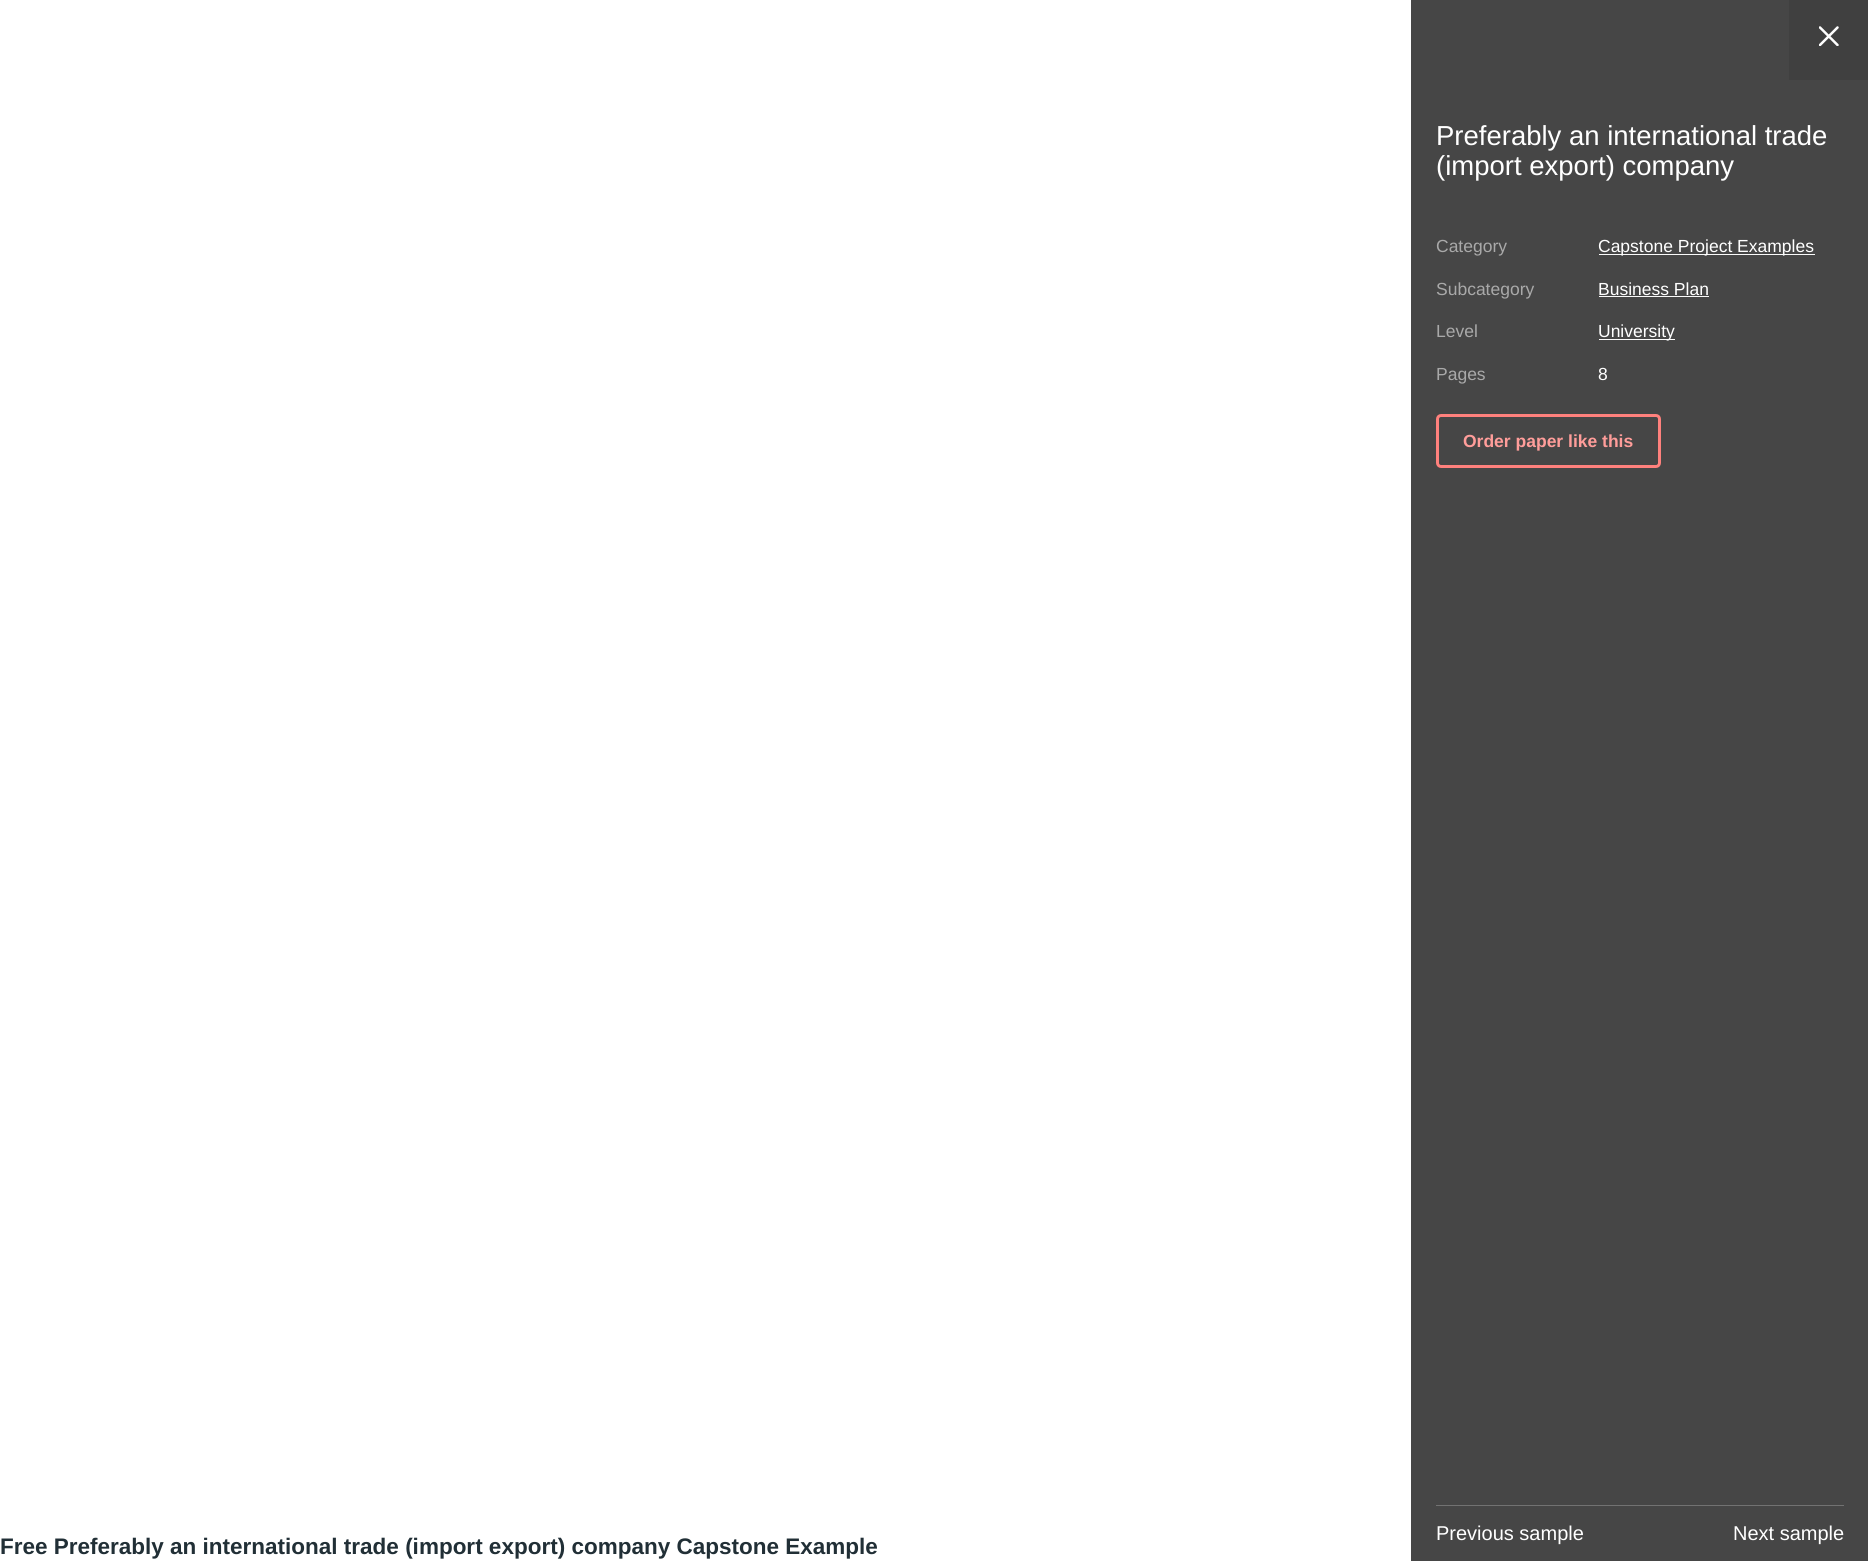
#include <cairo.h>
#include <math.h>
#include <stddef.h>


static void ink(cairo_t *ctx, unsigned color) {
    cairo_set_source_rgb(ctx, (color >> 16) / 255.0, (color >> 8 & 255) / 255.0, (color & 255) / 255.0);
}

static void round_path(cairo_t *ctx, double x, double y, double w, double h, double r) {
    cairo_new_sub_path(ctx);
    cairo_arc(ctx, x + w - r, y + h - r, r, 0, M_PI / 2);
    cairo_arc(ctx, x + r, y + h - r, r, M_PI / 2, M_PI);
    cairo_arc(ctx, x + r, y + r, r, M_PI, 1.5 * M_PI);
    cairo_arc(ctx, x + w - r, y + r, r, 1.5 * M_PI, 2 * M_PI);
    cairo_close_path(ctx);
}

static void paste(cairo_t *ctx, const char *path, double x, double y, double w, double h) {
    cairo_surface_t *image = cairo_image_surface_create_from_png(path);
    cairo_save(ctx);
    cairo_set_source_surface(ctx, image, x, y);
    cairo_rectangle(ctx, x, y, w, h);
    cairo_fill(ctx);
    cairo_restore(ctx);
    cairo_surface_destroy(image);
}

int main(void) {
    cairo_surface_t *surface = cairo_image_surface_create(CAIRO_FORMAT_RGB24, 1868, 1561);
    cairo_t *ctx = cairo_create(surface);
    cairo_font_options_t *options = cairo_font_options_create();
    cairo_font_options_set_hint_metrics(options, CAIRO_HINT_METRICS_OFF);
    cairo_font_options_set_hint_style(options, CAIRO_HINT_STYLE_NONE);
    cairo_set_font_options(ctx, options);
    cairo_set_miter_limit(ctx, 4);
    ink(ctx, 0xFFFFFF);
    cairo_paint(ctx);
    ink(ctx, 0x464646);
    cairo_rectangle(ctx, 1411, 0, 457, 1561);
    cairo_fill(ctx);
    ink(ctx, 0x404040);
    cairo_rectangle(ctx, 1789, 0, 79, 80);
    cairo_fill(ctx);
    paste(ctx, "media/1.png", 1819, 26, 20, 20);
    cairo_select_font_face(ctx, "Liberation Sans", CAIRO_FONT_SLANT_NORMAL, CAIRO_FONT_WEIGHT_NORMAL);
    cairo_set_font_size(ctx, 27.5);
    ink(ctx, 0xFFFFFF);
    cairo_move_to(ctx, 1436, 145);
    cairo_show_text(ctx, "Preferably an international trade");
    cairo_move_to(ctx, 1436, 175);
    cairo_show_text(ctx, "(import export) company");
    cairo_set_font_size(ctx, 17.5);
    ink(ctx, 0xA9A9A9);
    cairo_move_to(ctx, 1436, 252);
    cairo_show_text(ctx, "Category");
    ink(ctx, 0xFAFAFA);
    cairo_rectangle(ctx, 1599, 254, 216, 1);
    cairo_fill(ctx);
    ink(ctx, 0xFFFFFF);
    cairo_move_to(ctx, 1598, 252);
    cairo_show_text(ctx, "Capstone Project Examples");
    ink(ctx, 0xA9A9A9);
    cairo_move_to(ctx, 1436, 295);
    cairo_show_text(ctx, "Subcategory");
    ink(ctx, 0xFFFFFF);
    cairo_move_to(ctx, 1598, 295);
    cairo_show_text(ctx, "Business Plan");
    ink(ctx, 0xFAFAFA);
    cairo_rectangle(ctx, 1599, 296, 110, 1);
    cairo_fill(ctx);
    ink(ctx, 0xA9A9A9);
    cairo_move_to(ctx, 1436, 337);
    cairo_show_text(ctx, "Level");
    ink(ctx, 0xFAFAFA);
    cairo_rectangle(ctx, 1599, 339, 76, 1);
    cairo_fill(ctx);
    ink(ctx, 0xFFFFFF);
    cairo_move_to(ctx, 1598, 337);
    cairo_show_text(ctx, "University");
    ink(ctx, 0xA9A9A9);
    cairo_move_to(ctx, 1436, 380);
    cairo_show_text(ctx, "Pages");
    ink(ctx, 0xFFFFFF);
    cairo_move_to(ctx, 1598, 380);
    cairo_show_text(ctx, "8");
    round_path(ctx, 1437.5, 415.5, 222, 51, 3.5);
    ink(ctx, 0xFF817D);
    cairo_set_line_width(ctx, 3);
    cairo_stroke(ctx);
    cairo_select_font_face(ctx, "Liberation Sans", CAIRO_FONT_SLANT_NORMAL, CAIRO_FONT_WEIGHT_BOLD);
    ink(ctx, 0xFF9D9A);
    cairo_move_to(ctx, 1463, 447);
    cairo_show_text(ctx, "Order paper like this");
    ink(ctx, 0x727272);
    cairo_rectangle(ctx, 1436, 1505, 408, 1);
    cairo_fill(ctx);
    cairo_select_font_face(ctx, "Liberation Sans", CAIRO_FONT_SLANT_NORMAL, CAIRO_FONT_WEIGHT_NORMAL);
    cairo_set_font_size(ctx, 20);
    ink(ctx, 0xFFFFFF);
    cairo_move_to(ctx, 1436, 1540);
    cairo_show_text(ctx, "Previous sample");
    cairo_move_to(ctx, 1733, 1540);
    cairo_show_text(ctx, "Next sample");
    cairo_select_font_face(ctx, "Liberation Sans", CAIRO_FONT_SLANT_NORMAL, CAIRO_FONT_WEIGHT_BOLD);
    cairo_set_font_size(ctx, 22.5);
    ink(ctx, 0x212F36);
    cairo_move_to(ctx, 0, 1554);
    cairo_show_text(ctx, "Free Preferably an international trade (import export) company Capstone Example");
    cairo_surface_write_to_png(surface, "image.png");
    cairo_font_options_destroy(options);
    cairo_destroy(ctx);
    cairo_surface_destroy(surface);
    return 0;
}
